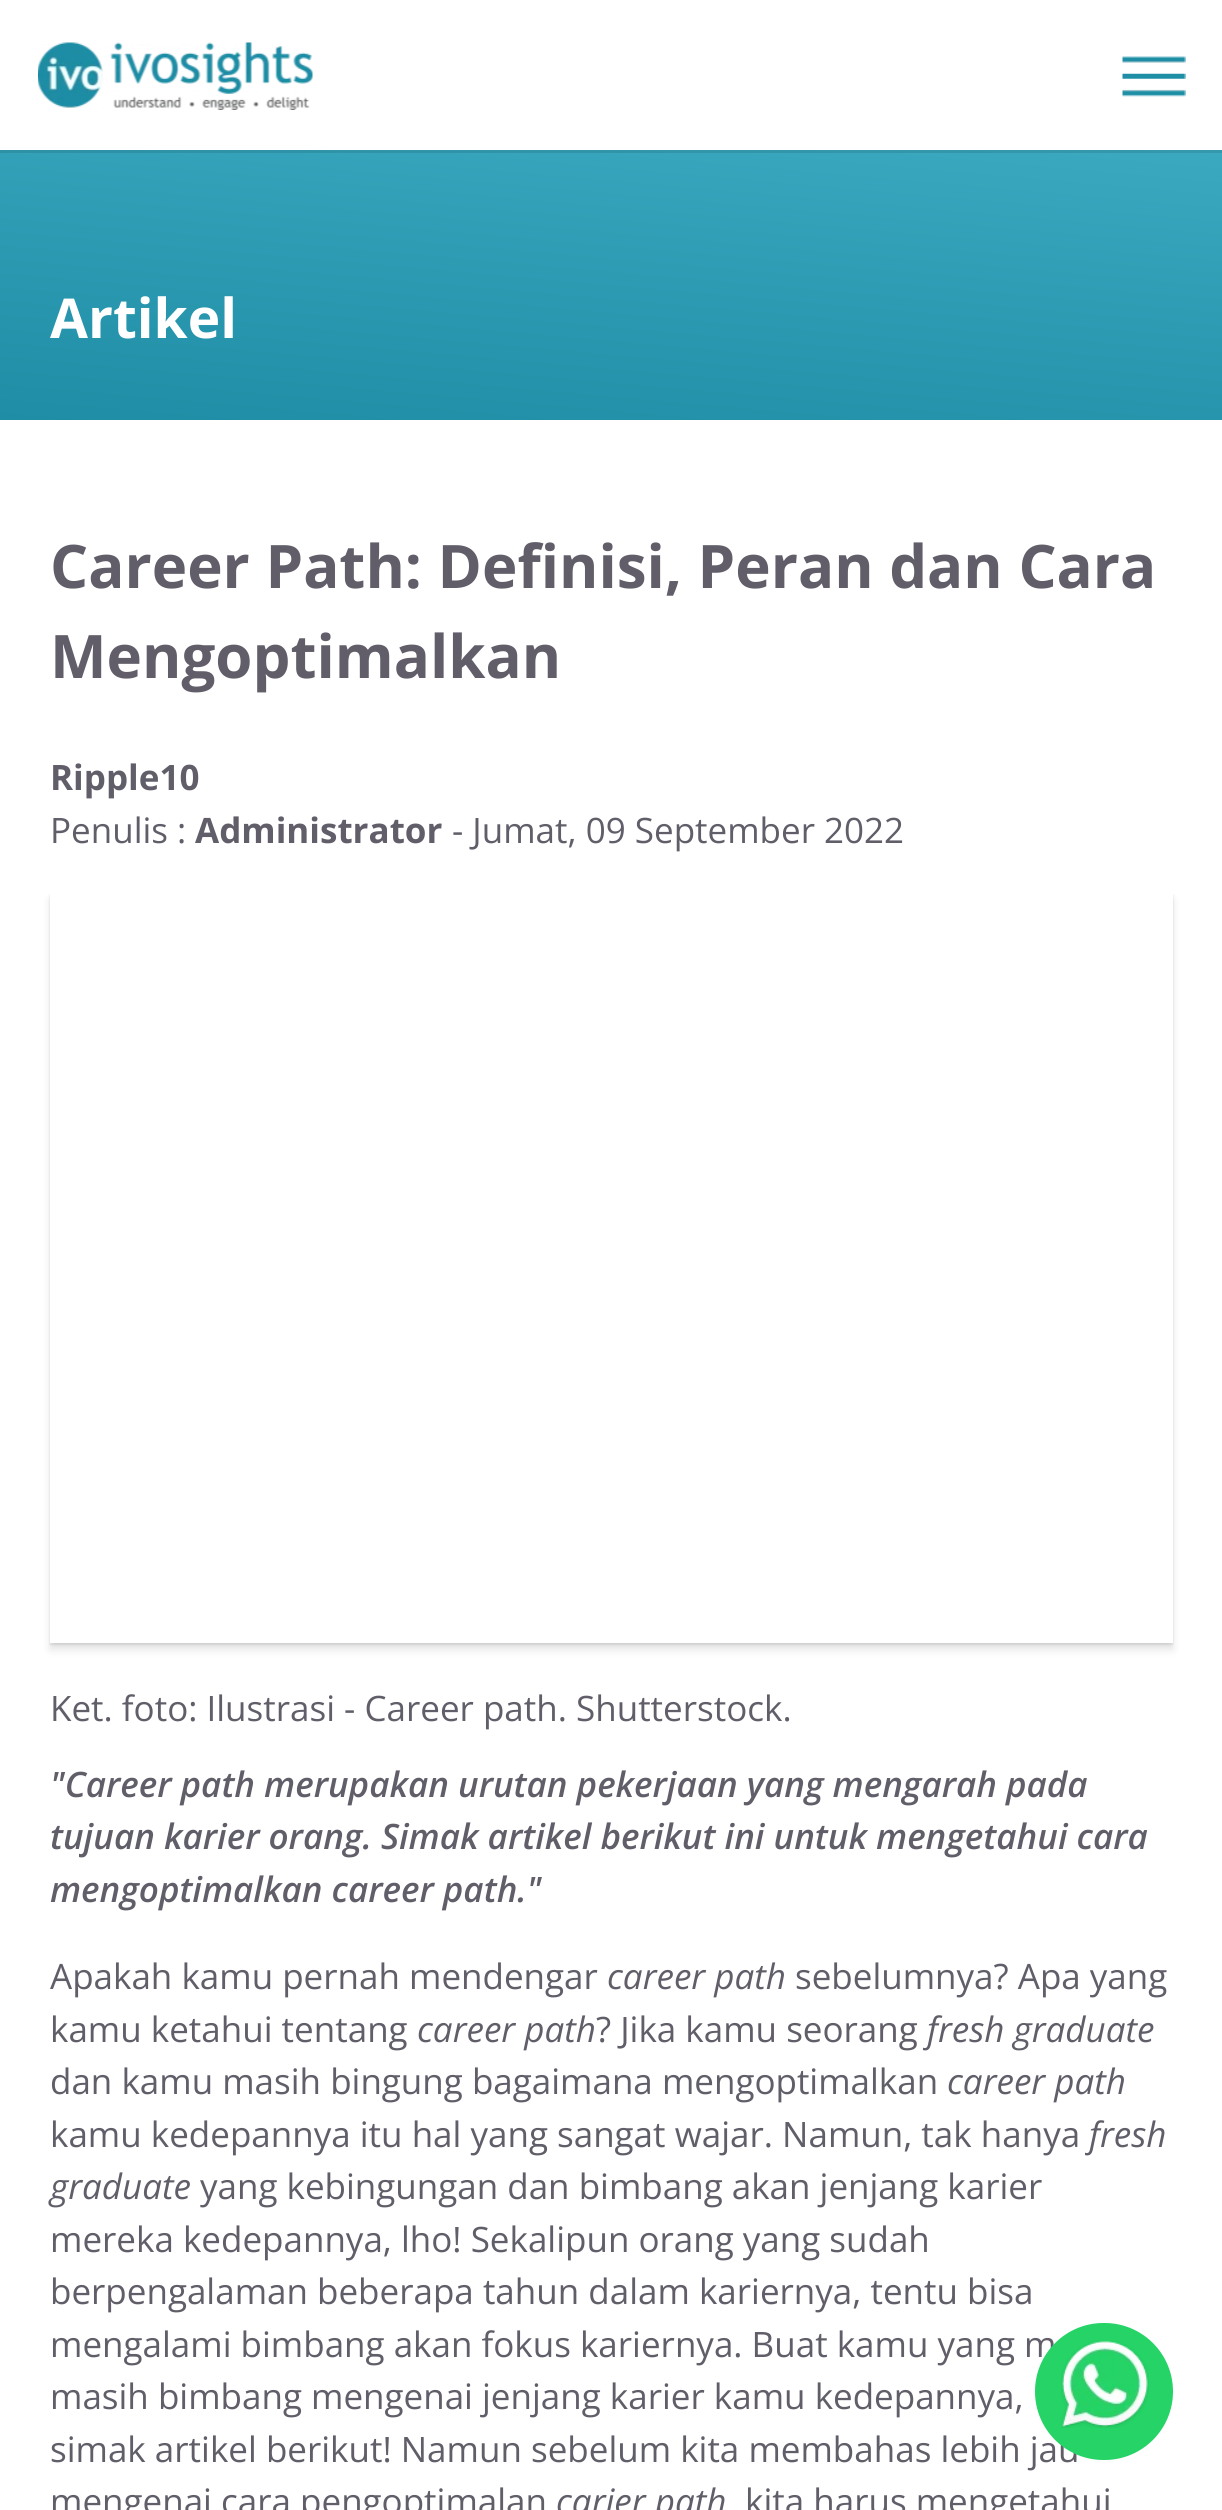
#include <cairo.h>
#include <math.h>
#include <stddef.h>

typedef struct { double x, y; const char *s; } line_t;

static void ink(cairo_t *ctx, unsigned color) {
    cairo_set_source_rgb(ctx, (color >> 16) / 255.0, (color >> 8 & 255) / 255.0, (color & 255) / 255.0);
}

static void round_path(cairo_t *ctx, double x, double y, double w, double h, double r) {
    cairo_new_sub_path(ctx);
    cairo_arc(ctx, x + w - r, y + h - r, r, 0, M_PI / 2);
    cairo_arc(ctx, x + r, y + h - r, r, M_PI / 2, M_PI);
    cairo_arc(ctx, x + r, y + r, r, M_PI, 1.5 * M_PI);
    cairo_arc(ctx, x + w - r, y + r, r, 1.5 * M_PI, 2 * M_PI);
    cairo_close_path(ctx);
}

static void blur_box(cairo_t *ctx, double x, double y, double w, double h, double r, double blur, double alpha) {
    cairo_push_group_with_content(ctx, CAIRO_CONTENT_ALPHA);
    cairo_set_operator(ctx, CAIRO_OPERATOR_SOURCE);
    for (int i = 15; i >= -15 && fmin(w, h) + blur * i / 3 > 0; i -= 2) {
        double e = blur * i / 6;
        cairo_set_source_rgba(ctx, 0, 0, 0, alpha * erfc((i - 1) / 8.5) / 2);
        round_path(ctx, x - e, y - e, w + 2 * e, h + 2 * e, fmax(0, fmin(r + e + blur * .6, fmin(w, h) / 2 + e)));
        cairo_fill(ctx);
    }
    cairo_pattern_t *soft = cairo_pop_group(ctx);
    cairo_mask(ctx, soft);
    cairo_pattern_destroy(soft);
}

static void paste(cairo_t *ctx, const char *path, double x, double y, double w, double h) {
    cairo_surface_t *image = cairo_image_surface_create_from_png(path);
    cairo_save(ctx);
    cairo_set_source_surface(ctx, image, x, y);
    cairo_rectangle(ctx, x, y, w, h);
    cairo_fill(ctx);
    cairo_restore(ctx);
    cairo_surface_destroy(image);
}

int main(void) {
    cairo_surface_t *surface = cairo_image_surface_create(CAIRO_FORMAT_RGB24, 1222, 2510);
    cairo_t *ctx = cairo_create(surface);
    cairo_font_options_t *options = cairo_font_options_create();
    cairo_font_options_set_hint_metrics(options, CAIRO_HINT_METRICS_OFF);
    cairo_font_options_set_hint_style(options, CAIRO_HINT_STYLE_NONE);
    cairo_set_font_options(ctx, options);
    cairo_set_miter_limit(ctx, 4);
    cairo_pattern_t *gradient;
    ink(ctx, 0xFFFFFF);
    cairo_paint(ctx);
    paste(ctx, "media/1.png", 38, 42, 275, 68);
    paste(ctx, "media/2.png", 1122, 56, 64, 41);
    gradient = cairo_pattern_create_linear(595, 472, 628, 98);
    cairo_pattern_add_color_stop_rgba(gradient, 0, 0.118, 0.553, 0.647, 1);
    cairo_pattern_add_color_stop_rgba(gradient, 1, 0.231, 0.663, 0.753, 1);
    cairo_set_source(ctx, gradient);
    cairo_pattern_destroy(gradient);
    cairo_rectangle(ctx, 0, 153, 1222, 267);
    cairo_fill(ctx);
    gradient = cairo_pattern_create_linear(595, 472, 628, 98);
    cairo_pattern_add_color_stop_rgba(gradient, 0, 0.106, 0.498, 0.584, 1);
    cairo_pattern_add_color_stop_rgba(gradient, 1, 0.208, 0.596, 0.678, 1);
    cairo_set_source(ctx, gradient);
    cairo_pattern_destroy(gradient);
    cairo_rectangle(ctx, 0, 150, 1222, 3);
    cairo_fill(ctx);
    cairo_select_font_face(ctx, "Open Sans", CAIRO_FONT_SLANT_NORMAL, CAIRO_FONT_WEIGHT_BOLD);
    cairo_set_font_size(ctx, 55);
    ink(ctx, 0xFFFFFF);
    cairo_move_to(ctx, 50, 338);
    cairo_show_text(ctx, "Artikel");
    cairo_set_font_size(ctx, 60);
    ink(ctx, 0x615E69);
    cairo_move_to(ctx, 50, 588);
    cairo_show_text(ctx, "Career Path: Definisi, Peran dan Cara");
    cairo_move_to(ctx, 50, 678);
    cairo_show_text(ctx, "Mengoptimalkan");
    cairo_set_font_size(ctx, 35);
    cairo_move_to(ctx, 50, 790);
    cairo_show_text(ctx, "Ripple10");
    cairo_select_font_face(ctx, "Open Sans", CAIRO_FONT_SLANT_NORMAL, CAIRO_FONT_WEIGHT_NORMAL);
    cairo_move_to(ctx, 50, 843);
    cairo_show_text(ctx, "Penulis :");
    cairo_select_font_face(ctx, "Open Sans", CAIRO_FONT_SLANT_NORMAL, CAIRO_FONT_WEIGHT_BOLD);
    cairo_move_to(ctx, 195, 843);
    cairo_show_text(ctx, "Administrator");
    cairo_select_font_face(ctx, "Open Sans", CAIRO_FONT_SLANT_NORMAL, CAIRO_FONT_WEIGHT_NORMAL);
    cairo_move_to(ctx, 452, 843);
    cairo_show_text(ctx, "- Jumat, 09 September 2022");
    cairo_save(ctx);
    cairo_set_fill_rule(ctx, CAIRO_FILL_RULE_EVEN_ODD);
    cairo_new_path(ctx);
    cairo_move_to(ctx, 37, 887);
    cairo_line_to(ctx, 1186, 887);
    cairo_line_to(ctx, 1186, 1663);
    cairo_line_to(ctx, 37, 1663);
    cairo_close_path(ctx);
    cairo_move_to(ctx, 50, 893);
    cairo_line_to(ctx, 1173, 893);
    cairo_line_to(ctx, 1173, 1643);
    cairo_line_to(ctx, 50, 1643);
    cairo_close_path(ctx);
    cairo_clip(ctx);
    ink(ctx, 0x000000);
    blur_box(ctx, 50, 900, 1123, 750, 0, 4, 0.1);
    cairo_restore(ctx);
    cairo_save(ctx);
    cairo_set_fill_rule(ctx, CAIRO_FILL_RULE_EVEN_ODD);
    cairo_new_path(ctx);
    cairo_move_to(ctx, 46, 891);
    cairo_line_to(ctx, 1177, 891);
    cairo_line_to(ctx, 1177, 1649);
    cairo_line_to(ctx, 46, 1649);
    cairo_close_path(ctx);
    cairo_move_to(ctx, 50, 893);
    cairo_line_to(ctx, 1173, 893);
    cairo_line_to(ctx, 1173, 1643);
    cairo_line_to(ctx, 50, 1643);
    cairo_close_path(ctx);
    cairo_clip(ctx);
    ink(ctx, 0x000000);
    blur_box(ctx, 50, 895, 1123, 750, 0, 1, 0.1);
    cairo_restore(ctx);
    cairo_move_to(ctx, 50, 1721);
    cairo_show_text(ctx, "Ket. foto: Ilustrasi - Career path. Shutterstock.");
    cairo_select_font_face(ctx, "Open Sans SemiBold", CAIRO_FONT_SLANT_ITALIC, CAIRO_FONT_WEIGHT_NORMAL);
    {
        static const line_t items[] = {
            {50, 1797, "\"Career path merupakan urutan pekerjaan yang mengarah pada"},
            {50, 1849, "tujuan karier orang. Simak artikel berikut ini untuk mengetahui cara"},
            {50, 1902, "mengoptimalkan career path.\""},
        };
        for (size_t i = 0; i < sizeof items / sizeof *items; i++) {
            cairo_move_to(ctx, items[i].x, items[i].y);
            cairo_show_text(ctx, items[i].s);
        }
    }
    cairo_select_font_face(ctx, "Open Sans", CAIRO_FONT_SLANT_NORMAL, CAIRO_FONT_WEIGHT_NORMAL);
    cairo_move_to(ctx, 50, 1989);
    cairo_show_text(ctx, "Apakah kamu pernah mendengar");
    cairo_select_font_face(ctx, "Open Sans", CAIRO_FONT_SLANT_ITALIC, CAIRO_FONT_WEIGHT_NORMAL);
    cairo_move_to(ctx, 607, 1989);
    cairo_show_text(ctx, "career path");
    cairo_select_font_face(ctx, "Open Sans", CAIRO_FONT_SLANT_NORMAL, CAIRO_FONT_WEIGHT_NORMAL);
    cairo_move_to(ctx, 795, 1989);
    cairo_show_text(ctx, "sebelumnya? Apa yang");
    cairo_move_to(ctx, 50, 2042);
    cairo_show_text(ctx, "kamu ketahui tentang");
    cairo_select_font_face(ctx, "Open Sans", CAIRO_FONT_SLANT_ITALIC, CAIRO_FONT_WEIGHT_NORMAL);
    cairo_move_to(ctx, 417, 2042);
    cairo_show_text(ctx, "career path");
    cairo_select_font_face(ctx, "Open Sans", CAIRO_FONT_SLANT_NORMAL, CAIRO_FONT_WEIGHT_NORMAL);
    cairo_move_to(ctx, 596, 2042);
    cairo_show_text(ctx, "? Jika kamu seorang");
    cairo_select_font_face(ctx, "Open Sans", CAIRO_FONT_SLANT_ITALIC, CAIRO_FONT_WEIGHT_NORMAL);
    cairo_move_to(ctx, 927, 2042);
    cairo_show_text(ctx, "fresh graduate");
    cairo_select_font_face(ctx, "Open Sans", CAIRO_FONT_SLANT_NORMAL, CAIRO_FONT_WEIGHT_NORMAL);
    cairo_move_to(ctx, 50, 2094);
    cairo_show_text(ctx, "dan kamu masih bingung bagaimana mengoptimalkan");
    cairo_select_font_face(ctx, "Open Sans", CAIRO_FONT_SLANT_ITALIC, CAIRO_FONT_WEIGHT_NORMAL);
    cairo_move_to(ctx, 947, 2094);
    cairo_show_text(ctx, "career path");
    cairo_select_font_face(ctx, "Open Sans", CAIRO_FONT_SLANT_NORMAL, CAIRO_FONT_WEIGHT_NORMAL);
    cairo_move_to(ctx, 50, 2147);
    cairo_show_text(ctx, "kamu kedepannya itu hal yang sangat wajar. Namun, tak hanya");
    cairo_select_font_face(ctx, "Open Sans", CAIRO_FONT_SLANT_ITALIC, CAIRO_FONT_WEIGHT_NORMAL);
    cairo_move_to(ctx, 1089, 2147);
    cairo_show_text(ctx, "fresh");
    cairo_move_to(ctx, 50, 2199);
    cairo_show_text(ctx, "graduate");
    cairo_select_font_face(ctx, "Open Sans", CAIRO_FONT_SLANT_NORMAL, CAIRO_FONT_WEIGHT_NORMAL);
    {
        static const line_t items[] = {
            {200, 2199, "yang kebingungan dan bimbang akan jenjang karier"},
            {50, 2252, "mereka kedepannya, lho! Sekalipun orang yang sudah"},
            {50, 2304, "berpengalaman beberapa tahun dalam kariernya, tentu bisa"},
            {50, 2357, "mengalami bimbang akan fokus kariernya. Buat kamu yang m"},
            {50, 2409, "masih bimbang mengenai jenjang karier kamu kedepannya,"},
            {50, 2462, "simak artikel berikut! Namun sebelum kita membahas lebih jau"},
            {50, 2514, "mengenai cara pengoptimalan"},
        };
        for (size_t i = 0; i < sizeof items / sizeof *items; i++) {
            cairo_move_to(ctx, items[i].x, items[i].y);
            cairo_show_text(ctx, items[i].s);
        }
    }
    cairo_select_font_face(ctx, "Open Sans", CAIRO_FONT_SLANT_ITALIC, CAIRO_FONT_WEIGHT_NORMAL);
    cairo_move_to(ctx, 556, 2514);
    cairo_show_text(ctx, "carier path");
    cairo_select_font_face(ctx, "Open Sans", CAIRO_FONT_SLANT_NORMAL, CAIRO_FONT_WEIGHT_NORMAL);
    cairo_move_to(ctx, 745, 2514);
    cairo_show_text(ctx, "kita harus mengetahui");
    ink(ctx, 0x25D366);
    round_path(ctx, 1035, 2323, 138, 137, 68.5);
    cairo_fill(ctx);
    paste(ctx, "media/3.png", 1061, 2341, 88, 87);
    cairo_surface_write_to_png(surface, "image.png");
    cairo_font_options_destroy(options);
    cairo_destroy(ctx);
    cairo_surface_destroy(surface);
    return 0;
}
